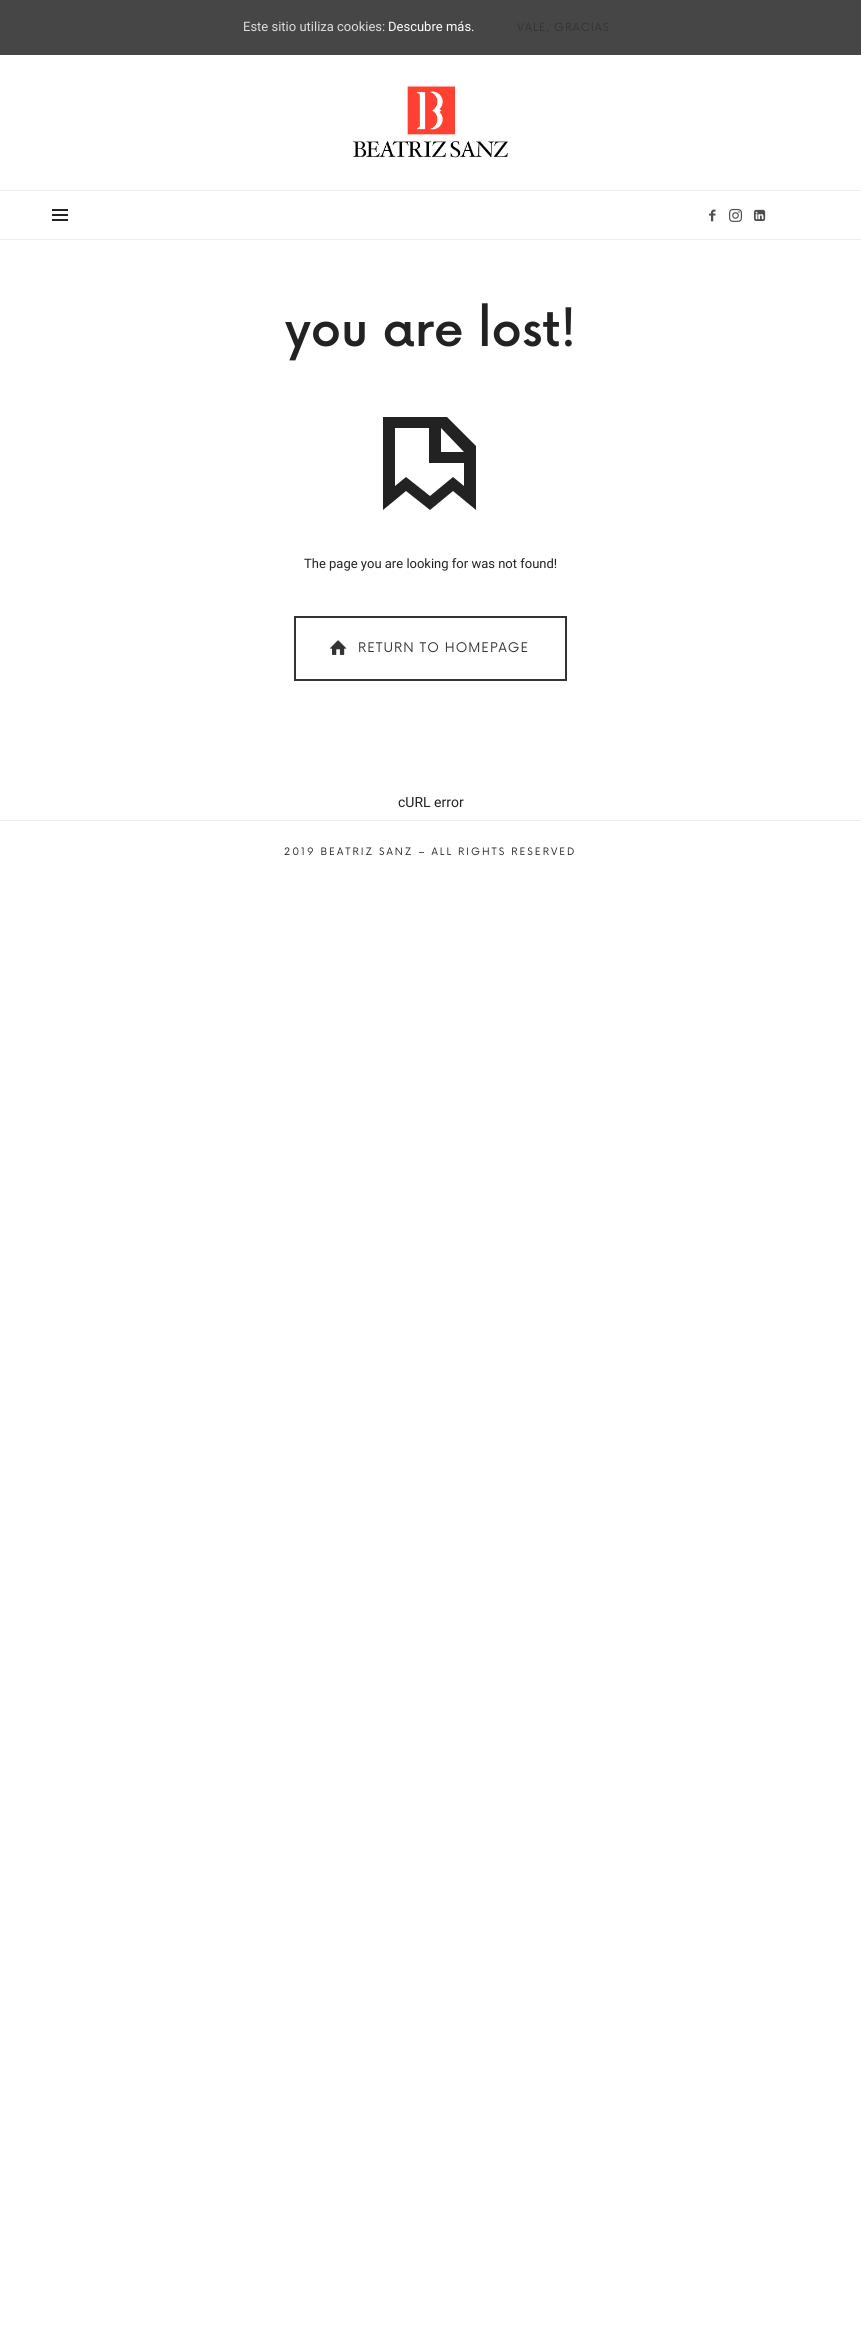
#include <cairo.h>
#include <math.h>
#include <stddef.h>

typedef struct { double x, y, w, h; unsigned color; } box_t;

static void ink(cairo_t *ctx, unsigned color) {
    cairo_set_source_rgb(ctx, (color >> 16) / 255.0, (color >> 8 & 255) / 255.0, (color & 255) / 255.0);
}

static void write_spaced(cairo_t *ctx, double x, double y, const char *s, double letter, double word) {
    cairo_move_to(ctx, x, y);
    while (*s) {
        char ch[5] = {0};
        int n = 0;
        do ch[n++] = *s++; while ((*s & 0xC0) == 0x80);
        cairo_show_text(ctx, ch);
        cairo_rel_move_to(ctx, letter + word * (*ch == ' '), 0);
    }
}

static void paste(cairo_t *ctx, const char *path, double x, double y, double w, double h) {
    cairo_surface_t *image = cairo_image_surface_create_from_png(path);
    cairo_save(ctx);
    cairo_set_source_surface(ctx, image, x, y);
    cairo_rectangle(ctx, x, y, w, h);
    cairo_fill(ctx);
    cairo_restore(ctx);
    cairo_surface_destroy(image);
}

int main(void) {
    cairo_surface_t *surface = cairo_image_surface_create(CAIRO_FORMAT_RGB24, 861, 2328);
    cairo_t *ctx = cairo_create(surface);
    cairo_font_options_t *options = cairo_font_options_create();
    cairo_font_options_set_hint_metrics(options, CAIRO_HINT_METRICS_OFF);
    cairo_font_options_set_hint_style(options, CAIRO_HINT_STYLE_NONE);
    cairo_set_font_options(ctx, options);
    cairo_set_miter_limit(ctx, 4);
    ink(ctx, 0xFFFFFF);
    cairo_paint(ctx);
    ink(ctx, 0x464646);
    cairo_rectangle(ctx, 0, 0, 861, 55);
    cairo_fill(ctx);
    cairo_select_font_face(ctx, "Roboto", CAIRO_FONT_SLANT_NORMAL, CAIRO_FONT_WEIGHT_NORMAL);
    cairo_set_font_size(ctx, 13);
    ink(ctx, 0xDDDDDD);
    cairo_move_to(ctx, 243, 31);
    cairo_show_text(ctx, "Este sitio utiliza cookies:");
    ink(ctx, 0xFFFFFF);
    cairo_move_to(ctx, 388, 31);
    cairo_show_text(ctx, "Descubre más.");
    cairo_select_font_face(ctx, "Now", CAIRO_FONT_SLANT_NORMAL, CAIRO_FONT_WEIGHT_NORMAL);
    cairo_set_font_size(ctx, 11);
    ink(ctx, 0x333333);
    write_spaced(ctx, 517, 31, "VALE, GRACIAS", 1, 0);
    paste(ctx, "media/1.png", 352, 85, 156, 73);
    {
        static const box_t items[] = {
            {0, 190, 861, 1, 0xEEEEEE},
            {0, 239, 861, 1, 0xEEEEEE},
            {52, 214, 16, 2, 0x222222},
            {52, 209, 16, 2, 0x222222},
            {52, 219, 16, 2, 0x222222},
        };
        for (size_t i = 0; i < sizeof items / sizeof *items; i++) {
            ink(ctx, items[i].color);
            cairo_rectangle(ctx, items[i].x, items[i].y, items[i].w, items[i].h);
            cairo_fill(ctx);
        }
    }
    paste(ctx, "media/2.png", 709, 209, 7, 13);
    paste(ctx, "media/3.png", 729, 208, 13, 14);
    paste(ctx, "media/4.png", 754, 209, 12, 12);
    cairo_select_font_face(ctx, "Now Medium", CAIRO_FONT_SLANT_NORMAL, CAIRO_FONT_WEIGHT_NORMAL);
    cairo_set_font_size(ctx, 48);
    cairo_move_to(ctx, 285, 346);
    cairo_show_text(ctx, "you are lost!");
    cairo_new_path(ctx);
    cairo_move_to(ctx, 447, 417);
    cairo_line_to(ctx, 476, 446);
    cairo_line_to(ctx, 476, 510);
    cairo_line_to(ctx, 453, 491);
    cairo_line_to(ctx, 430, 510);
    cairo_line_to(ctx, 406, 491);
    cairo_line_to(ctx, 383, 510);
    cairo_line_to(ctx, 383, 417);
    cairo_close_path(ctx);
    cairo_move_to(ctx, 464, 486);
    cairo_line_to(ctx, 464, 463);
    cairo_line_to(ctx, 429, 463);
    cairo_line_to(ctx, 429, 428);
    cairo_line_to(ctx, 395, 428);
    cairo_line_to(ctx, 395, 486);
    cairo_line_to(ctx, 406, 477);
    cairo_line_to(ctx, 430, 496);
    cairo_line_to(ctx, 453, 477);
    cairo_close_path(ctx);
    cairo_move_to(ctx, 441, 452);
    cairo_line_to(ctx, 464, 452);
    cairo_line_to(ctx, 441, 428);
    cairo_close_path(ctx);
    cairo_fill(ctx);
    cairo_select_font_face(ctx, "Roboto", CAIRO_FONT_SLANT_NORMAL, CAIRO_FONT_WEIGHT_NORMAL);
    cairo_set_font_size(ctx, 13);
    cairo_move_to(ctx, 304, 568);
    cairo_show_text(ctx, "The page you are looking for was not found!");
    cairo_rectangle(ctx, 295, 617, 271, 63);
    ink(ctx, 0x333333);
    cairo_stroke(ctx);
    paste(ctx, "media/5.png", 330, 640, 17, 15);
    cairo_select_font_face(ctx, "Now", CAIRO_FONT_SLANT_NORMAL, CAIRO_FONT_WEIGHT_NORMAL);
    write_spaced(ctx, 358, 652, "RETURN TO HOMEPAGE", 1, 0);
    cairo_select_font_face(ctx, "Roboto", CAIRO_FONT_SLANT_NORMAL, CAIRO_FONT_WEIGHT_NORMAL);
    cairo_set_font_size(ctx, 14);
    ink(ctx, 0x222222);
    cairo_move_to(ctx, 398, 807);
    cairo_show_text(ctx, "cURL error");
    ink(ctx, 0xEEEEEE);
    cairo_rectangle(ctx, 0, 820, 861, 1);
    cairo_fill(ctx);
    cairo_select_font_face(ctx, "Now", CAIRO_FONT_SLANT_NORMAL, CAIRO_FONT_WEIGHT_NORMAL);
    cairo_set_font_size(ctx, 10);
    ink(ctx, 0x222222);
    write_spaced(ctx, 284, 855, "2019 BEATRIZ SANZ – ALL RIGHTS RESERVED", 2, 0);
    cairo_surface_write_to_png(surface, "image.png");
    cairo_font_options_destroy(options);
    cairo_destroy(ctx);
    cairo_surface_destroy(surface);
    return 0;
}
